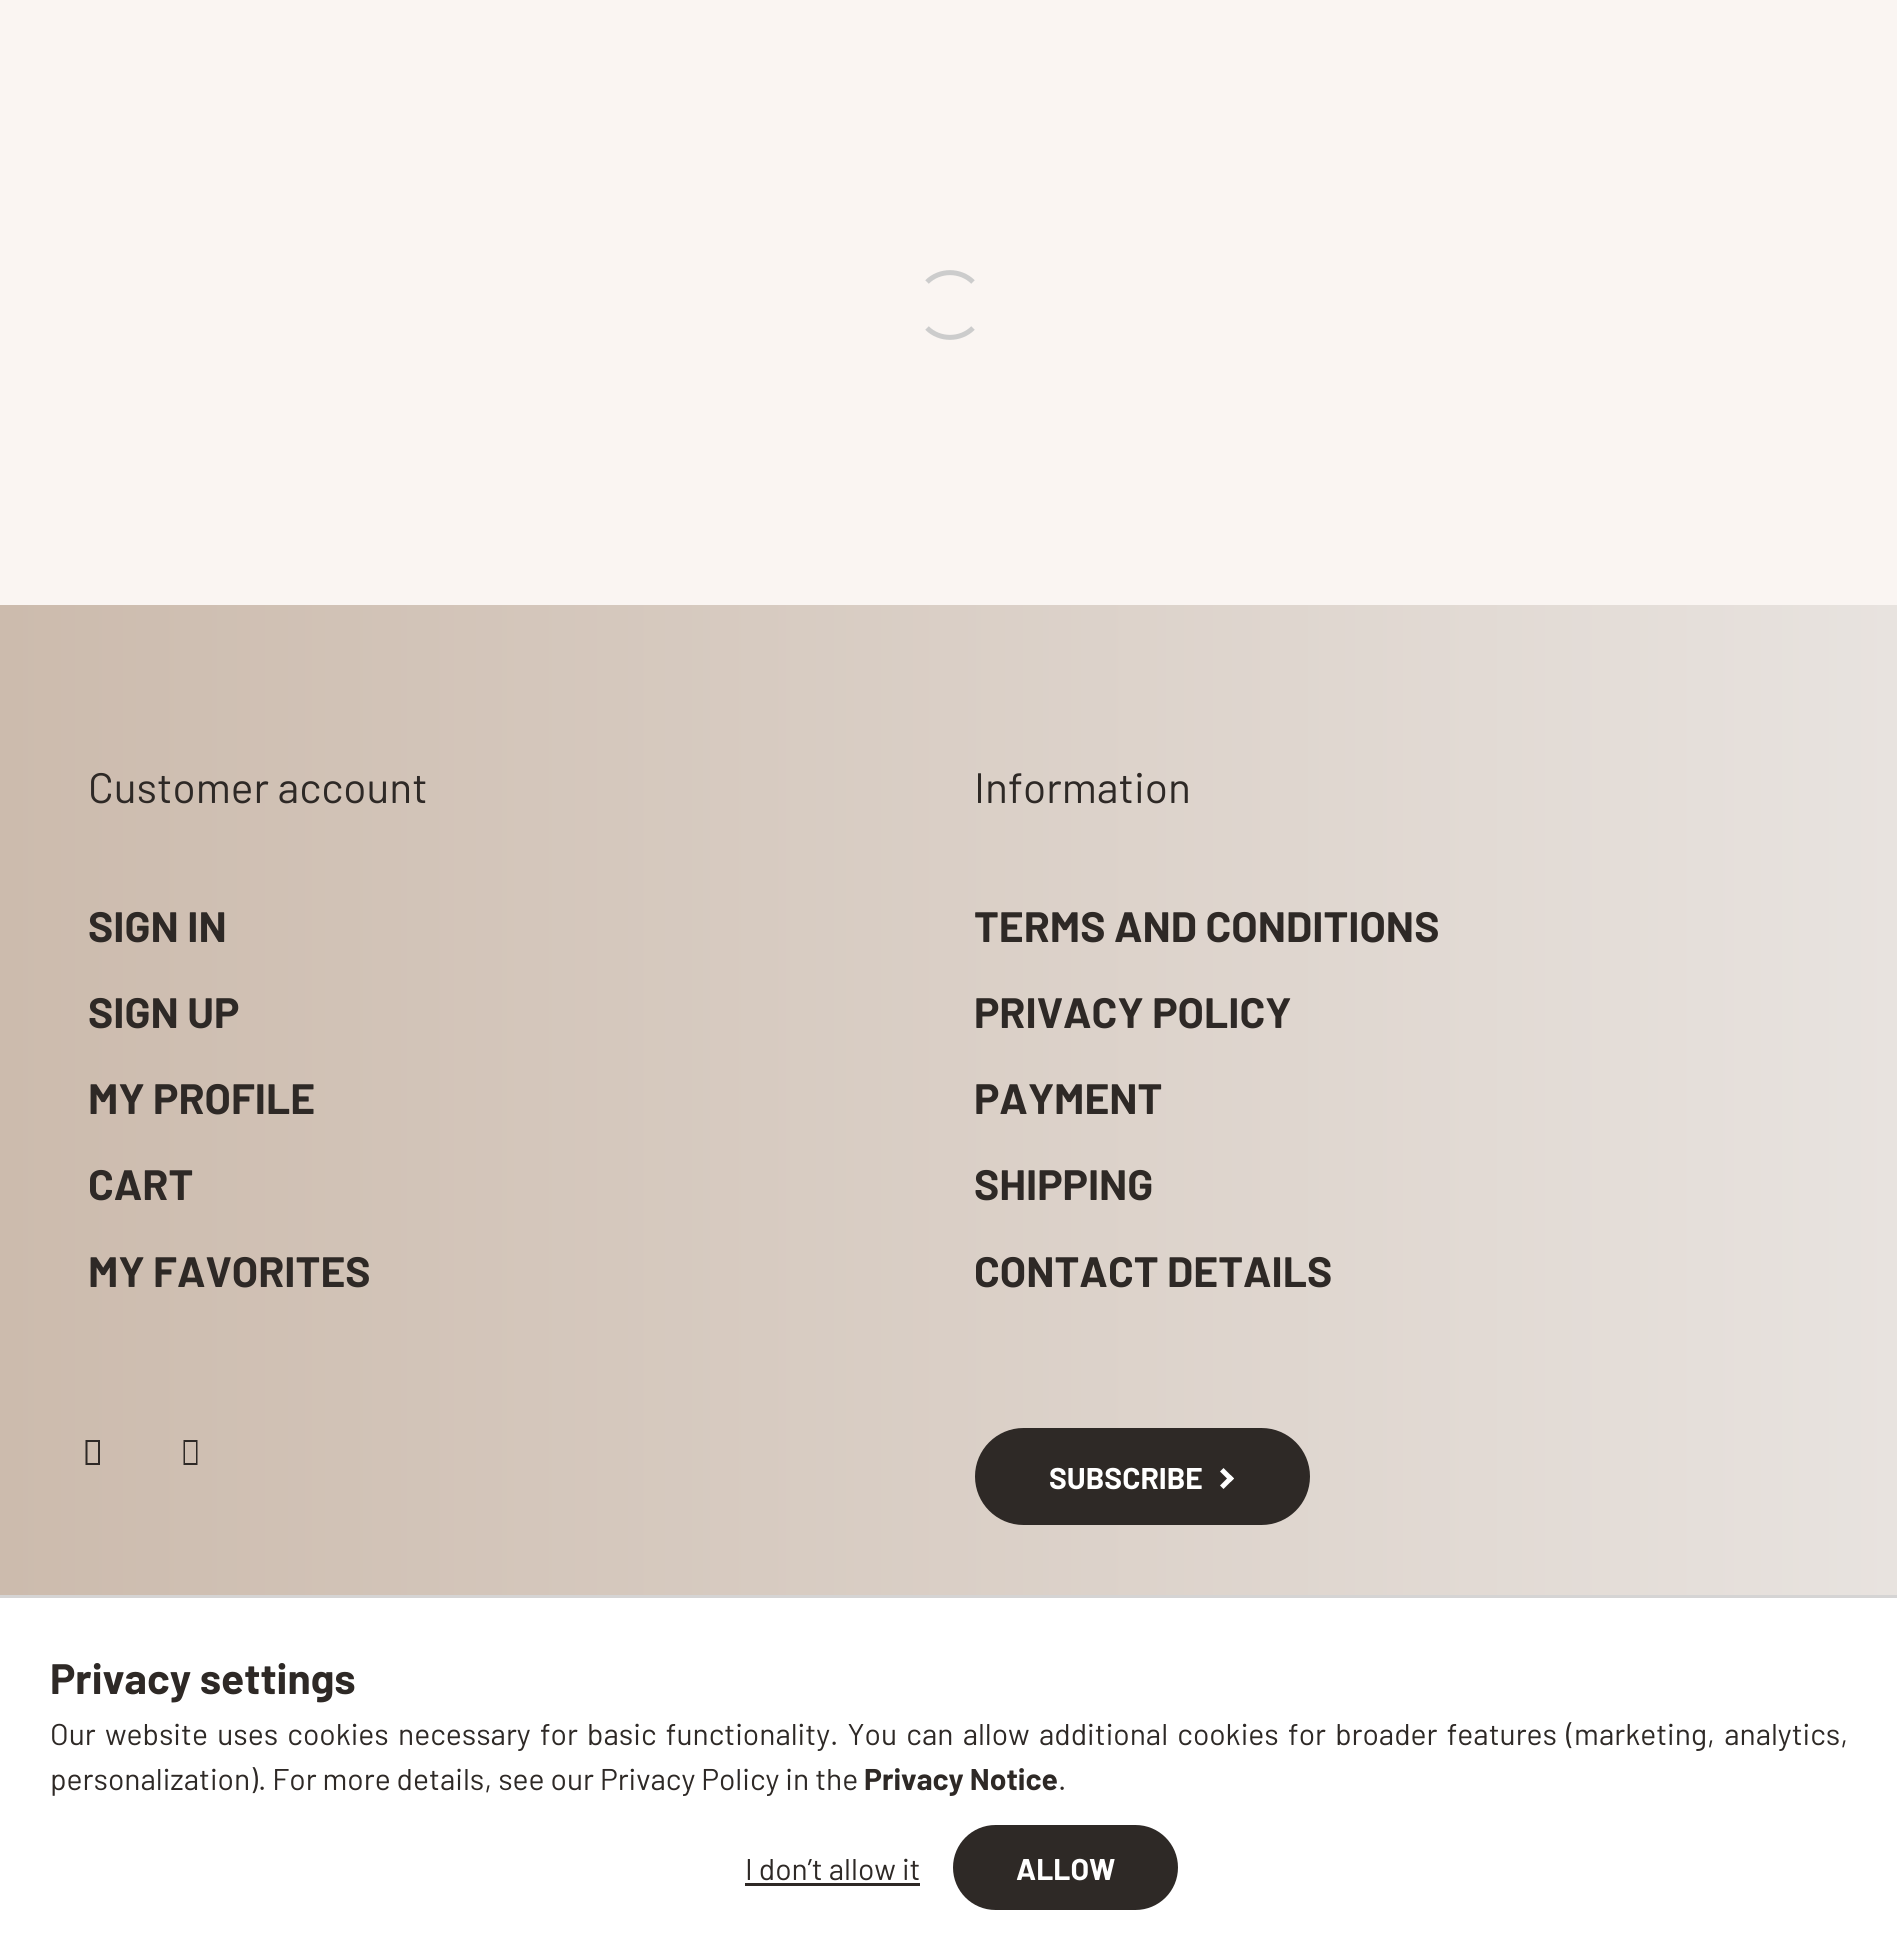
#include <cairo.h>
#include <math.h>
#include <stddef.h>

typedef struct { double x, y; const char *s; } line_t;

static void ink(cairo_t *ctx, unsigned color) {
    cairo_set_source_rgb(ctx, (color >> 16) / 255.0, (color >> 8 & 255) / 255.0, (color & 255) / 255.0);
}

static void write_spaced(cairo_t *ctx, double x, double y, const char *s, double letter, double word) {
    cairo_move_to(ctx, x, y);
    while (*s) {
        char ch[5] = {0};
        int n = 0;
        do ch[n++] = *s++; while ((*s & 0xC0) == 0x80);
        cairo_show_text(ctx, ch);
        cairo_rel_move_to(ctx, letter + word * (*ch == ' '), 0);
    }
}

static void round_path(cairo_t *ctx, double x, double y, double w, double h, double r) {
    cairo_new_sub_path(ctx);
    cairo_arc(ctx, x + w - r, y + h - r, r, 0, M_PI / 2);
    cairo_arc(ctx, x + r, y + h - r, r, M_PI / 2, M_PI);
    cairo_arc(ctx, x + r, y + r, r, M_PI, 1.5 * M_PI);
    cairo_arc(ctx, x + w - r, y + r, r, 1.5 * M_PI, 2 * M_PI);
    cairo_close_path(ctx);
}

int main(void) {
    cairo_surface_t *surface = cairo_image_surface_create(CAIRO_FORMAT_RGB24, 1897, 1958);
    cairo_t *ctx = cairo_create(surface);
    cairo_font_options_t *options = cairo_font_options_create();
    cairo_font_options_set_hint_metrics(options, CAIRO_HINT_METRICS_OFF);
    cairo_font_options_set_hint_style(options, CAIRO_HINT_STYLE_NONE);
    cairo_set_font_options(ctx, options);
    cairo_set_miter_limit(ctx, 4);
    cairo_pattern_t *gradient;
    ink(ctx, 0xFAF5F2);
    cairo_paint(ctx);
    cairo_new_path(ctx);
    cairo_move_to(ctx, 927, 282);
    cairo_curve_to(ctx, 939.5, 269.5, 960.5, 269.5, 973, 282);
    ink(ctx, 0xCCCCCC);
    cairo_set_line_width(ctx, 5);
    cairo_stroke(ctx);
    cairo_new_path(ctx);
    cairo_move_to(ctx, 973, 328);
    cairo_curve_to(ctx, 960.5, 340.5, 939.5, 340.5, 927, 328);
    cairo_stroke(ctx);
    gradient = cairo_pattern_create_linear(0, 980, 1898, 980);
    cairo_pattern_add_color_stop_rgba(gradient, 0, 0.8, 0.733, 0.678, 1);
    cairo_pattern_add_color_stop_rgba(gradient, 1, 0.91, 0.89, 0.875, 1);
    cairo_set_source(ctx, gradient);
    cairo_pattern_destroy(gradient);
    cairo_rectangle(ctx, 0, 605, 1897, 990);
    cairo_fill(ctx);
    cairo_select_font_face(ctx, "Barlow", CAIRO_FONT_SLANT_NORMAL, CAIRO_FONT_WEIGHT_NORMAL);
    cairo_set_font_size(ctx, 42.5);
    ink(ctx, 0x2E2926);
    cairo_move_to(ctx, 88, 803);
    cairo_show_text(ctx, "Customer account");
    cairo_select_font_face(ctx, "Barlow", CAIRO_FONT_SLANT_NORMAL, CAIRO_FONT_WEIGHT_BOLD);
    {
        static const line_t items[] = {
            {88, 942, "SIGN IN"},
            {88, 1028, "SIGN UP"},
            {88, 1114, "MY PROFILE"},
            {88, 1200, "CART"},
            {88, 1287, "MY FAVORITES"},
        };
        for (size_t i = 0; i < sizeof items / sizeof *items; i++) {
            cairo_move_to(ctx, items[i].x, items[i].y);
            cairo_show_text(ctx, items[i].s);
        }
    }
    cairo_select_font_face(ctx, "Barlow", CAIRO_FONT_SLANT_NORMAL, CAIRO_FONT_WEIGHT_NORMAL);
    cairo_move_to(ctx, 974, 803);
    cairo_show_text(ctx, "Information");
    cairo_select_font_face(ctx, "Barlow", CAIRO_FONT_SLANT_NORMAL, CAIRO_FONT_WEIGHT_BOLD);
    {
        static const line_t items[] = {
            {974, 942, "TERMS AND CONDITIONS"},
            {974, 1028, "PRIVACY POLICY"},
            {974, 1114, "PAYMENT"},
            {974, 1200, "SHIPPING"},
            {974, 1287, "CONTACT DETAILS"},
        };
        for (size_t i = 0; i < sizeof items / sizeof *items; i++) {
            cairo_move_to(ctx, items[i].x, items[i].y);
            cairo_show_text(ctx, items[i].s);
        }
    }
    cairo_new_path(ctx);
    cairo_move_to(ctx, 85.5, 1465);
    cairo_line_to(ctx, 85.5, 1440);
    cairo_line_to(ctx, 100, 1440);
    cairo_line_to(ctx, 100, 1465);
    cairo_close_path(ctx);
    cairo_move_to(ctx, 87.5, 1463);
    cairo_line_to(ctx, 98, 1463);
    cairo_line_to(ctx, 98, 1442);
    cairo_line_to(ctx, 87.5, 1442);
    cairo_close_path(ctx);
    cairo_fill(ctx);
    cairo_new_path(ctx);
    cairo_move_to(ctx, 183.5, 1465);
    cairo_line_to(ctx, 183.5, 1440);
    cairo_line_to(ctx, 197.5, 1440);
    cairo_line_to(ctx, 197.5, 1465);
    cairo_close_path(ctx);
    cairo_move_to(ctx, 185, 1463);
    cairo_line_to(ctx, 196, 1463);
    cairo_line_to(ctx, 196, 1442);
    cairo_line_to(ctx, 185, 1442);
    cairo_close_path(ctx);
    cairo_fill(ctx);
    gradient = cairo_pattern_create_linear(975, 1476, 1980, 1476);
    cairo_pattern_add_color_stop_rgba(gradient, 0.33, 0.18, 0.161, 0.149, 1);
    cairo_pattern_add_color_stop_rgba(gradient, 0.67, 0.8, 0.733, 0.678, 1);
    cairo_set_source(ctx, gradient);
    cairo_pattern_destroy(gradient);
    round_path(ctx, 975, 1428, 335, 97, 48.5);
    cairo_fill(ctx);
    cairo_set_font_size(ctx, 30);
    ink(ctx, 0xFFFFFF);
    cairo_move_to(ctx, 1049, 1489);
    cairo_show_text(ctx, "SUBSCRIBE");
    cairo_new_path(ctx);
    cairo_move_to(ctx, 1220, 1485.5);
    cairo_line_to(ctx, 1230.5, 1475);
    cairo_line_to(ctx, 1234, 1478.5);
    cairo_line_to(ctx, 1223.5, 1489);
    cairo_close_path(ctx);
    cairo_fill(ctx);
    cairo_new_path(ctx);
    cairo_move_to(ctx, 1223.5, 1468);
    cairo_line_to(ctx, 1234, 1478.5);
    cairo_line_to(ctx, 1230.5, 1482);
    cairo_line_to(ctx, 1220, 1471.5);
    cairo_close_path(ctx);
    cairo_fill(ctx);
    cairo_rectangle(ctx, 0, 1598, 1897, 360);
    cairo_fill(ctx);
    ink(ctx, 0xD5D4D4);
    cairo_rectangle(ctx, 0, 1595, 1897, 3);
    cairo_fill(ctx);
    cairo_set_font_size(ctx, 42.5);
    ink(ctx, 0x2E2926);
    cairo_move_to(ctx, 50, 1694);
    cairo_show_text(ctx, "Privacy settings");
    cairo_select_font_face(ctx, "Barlow", CAIRO_FONT_SLANT_NORMAL, CAIRO_FONT_WEIGHT_NORMAL);
    cairo_set_font_size(ctx, 30);
    write_spaced(ctx, 50, 1745, "Our website uses cookies necessary for basic functionality. You can allow additional cookies for broader features (marketing, analytics,", 0, 3.25);
    cairo_move_to(ctx, 50, 1790);
    cairo_show_text(ctx, "personalization). For more details, see our Privacy Policy in the");
    cairo_select_font_face(ctx, "Barlow", CAIRO_FONT_SLANT_NORMAL, CAIRO_FONT_WEIGHT_BOLD);
    cairo_move_to(ctx, 864, 1790);
    cairo_show_text(ctx, "Privacy Notice");
    cairo_select_font_face(ctx, "Barlow", CAIRO_FONT_SLANT_NORMAL, CAIRO_FONT_WEIGHT_NORMAL);
    cairo_move_to(ctx, 1058, 1790);
    cairo_show_text(ctx, ".");
    cairo_move_to(ctx, 745, 1880);
    cairo_show_text(ctx, "I don’t allow it");
    cairo_rectangle(ctx, 745, 1883, 175, 3);
    cairo_fill(ctx);
    gradient = cairo_pattern_create_linear(953, 1868, 1628, 1868);
    cairo_pattern_add_color_stop_rgba(gradient, 0.33, 0.18, 0.161, 0.149, 1);
    cairo_pattern_add_color_stop_rgba(gradient, 0.67, 0.8, 0.733, 0.678, 1);
    cairo_set_source(ctx, gradient);
    cairo_pattern_destroy(gradient);
    round_path(ctx, 953, 1825, 225, 85, 42.5);
    cairo_fill(ctx);
    cairo_select_font_face(ctx, "Barlow", CAIRO_FONT_SLANT_NORMAL, CAIRO_FONT_WEIGHT_BOLD);
    ink(ctx, 0xFFFFFF);
    cairo_move_to(ctx, 1016, 1880);
    cairo_show_text(ctx, "ALLOW");
    cairo_surface_write_to_png(surface, "image.png");
    cairo_font_options_destroy(options);
    cairo_destroy(ctx);
    cairo_surface_destroy(surface);
    return 0;
}
